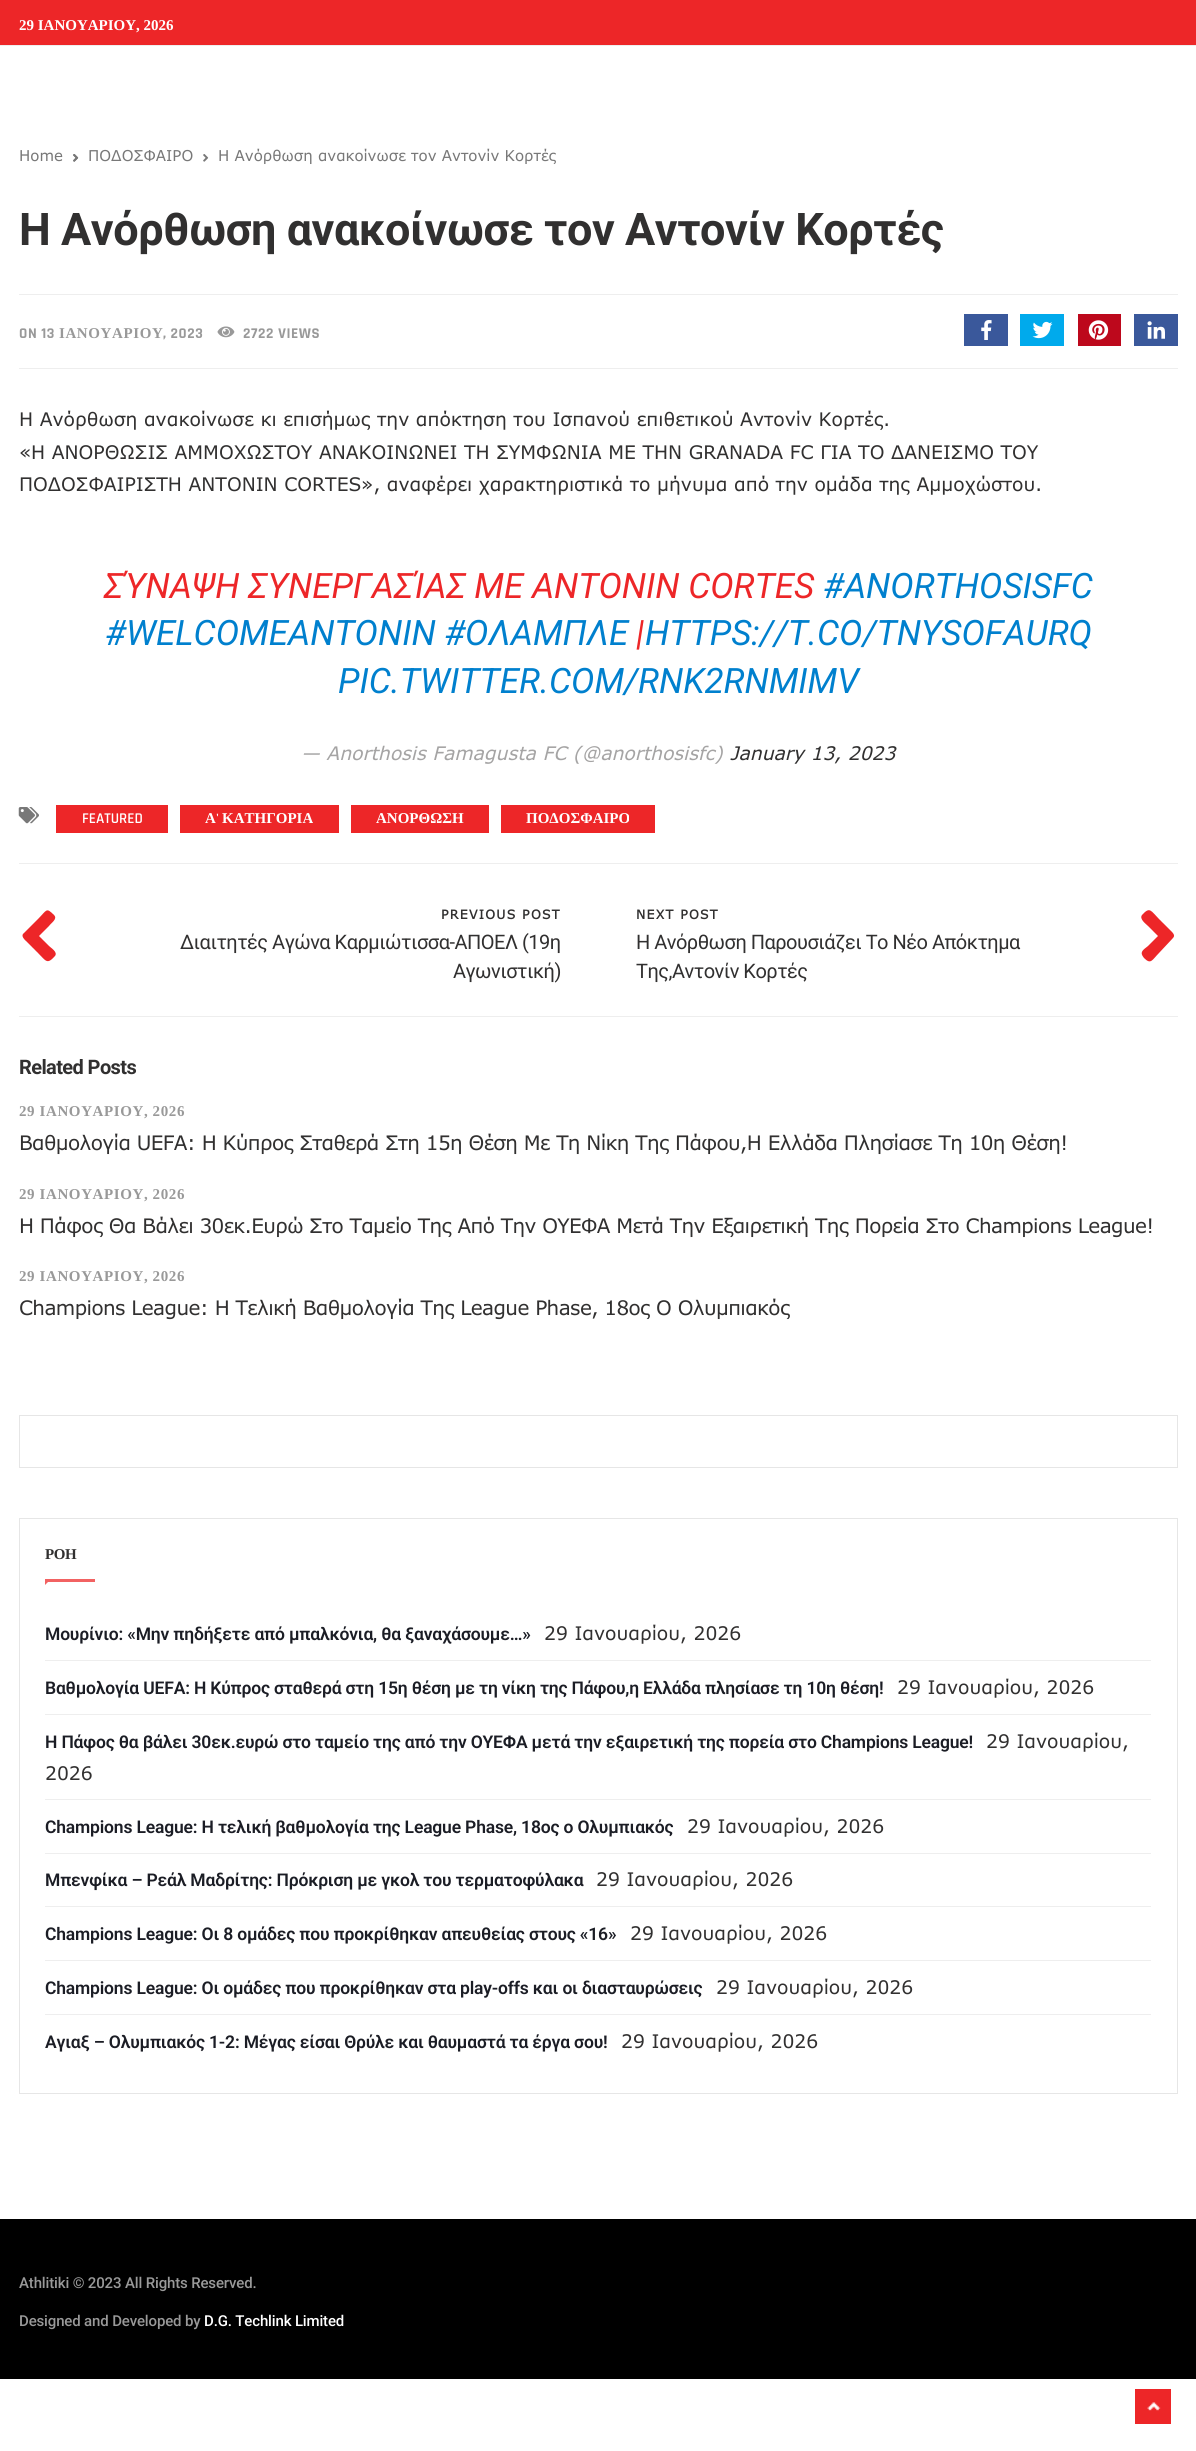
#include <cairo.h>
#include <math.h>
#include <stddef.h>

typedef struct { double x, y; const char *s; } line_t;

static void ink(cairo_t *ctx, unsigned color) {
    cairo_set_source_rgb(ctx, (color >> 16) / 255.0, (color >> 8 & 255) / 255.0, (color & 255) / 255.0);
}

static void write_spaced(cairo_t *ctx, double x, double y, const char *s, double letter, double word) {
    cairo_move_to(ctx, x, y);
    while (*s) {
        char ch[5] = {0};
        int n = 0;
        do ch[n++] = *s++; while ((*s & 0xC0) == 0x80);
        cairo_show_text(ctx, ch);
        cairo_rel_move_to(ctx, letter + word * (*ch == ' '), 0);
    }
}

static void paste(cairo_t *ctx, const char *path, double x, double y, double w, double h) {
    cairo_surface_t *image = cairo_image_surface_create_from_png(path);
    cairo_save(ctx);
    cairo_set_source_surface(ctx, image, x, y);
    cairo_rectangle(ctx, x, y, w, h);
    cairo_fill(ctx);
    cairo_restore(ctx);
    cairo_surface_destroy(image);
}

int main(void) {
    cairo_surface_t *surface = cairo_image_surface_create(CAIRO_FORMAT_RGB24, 1196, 2451);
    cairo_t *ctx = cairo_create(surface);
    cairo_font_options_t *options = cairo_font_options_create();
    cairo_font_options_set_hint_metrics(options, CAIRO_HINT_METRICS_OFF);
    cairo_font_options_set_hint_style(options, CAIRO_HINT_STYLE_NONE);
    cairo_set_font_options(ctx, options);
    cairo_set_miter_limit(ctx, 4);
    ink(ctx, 0xFFFFFF);
    cairo_paint(ctx);
    ink(ctx, 0xED2628);
    cairo_rectangle(ctx, 0, 0, 1196, 45);
    cairo_fill(ctx);
    ink(ctx, 0xEEEEEE);
    cairo_rectangle(ctx, 0, 45, 1196, 1);
    cairo_fill(ctx);
    cairo_select_font_face(ctx, "Liberation Serif", CAIRO_FONT_SLANT_NORMAL, CAIRO_FONT_WEIGHT_BOLD);
    cairo_set_font_size(ctx, 15);
    ink(ctx, 0xFFFFFF);
    cairo_move_to(ctx, 19, 30);
    cairo_show_text(ctx, "29 ΙΑΝΟΥΑΡΙΟΥ, 2026");
    cairo_select_font_face(ctx, "Verdana", CAIRO_FONT_SLANT_NORMAL, CAIRO_FONT_WEIGHT_NORMAL);
    ink(ctx, 0x787878);
    cairo_move_to(ctx, 19, 161);
    cairo_show_text(ctx, "Home");
    paste(ctx, "media/1.png", 73, 154, 6, 8);
    paste(ctx, "media/2.png", 73, 154, 6, 8);
    cairo_move_to(ctx, 88, 161);
    cairo_show_text(ctx, "ΠΟΔΟΣΦΑΙΡΟ");
    paste(ctx, "media/1.png", 203, 154, 6, 8);
    cairo_move_to(ctx, 218, 161);
    cairo_show_text(ctx, "Η Ανόρθωση ανακοίνωσε τον Αντονίν Κορτές");
    cairo_select_font_face(ctx, "Roboto", CAIRO_FONT_SLANT_NORMAL, CAIRO_FONT_WEIGHT_BOLD);
    cairo_set_font_size(ctx, 45);
    ink(ctx, 0x313030);
    write_spaced(ctx, 19, 245, "Η Ανόρθωση ανακοίνωσε τον Αντονίν Κορτές", -0.45, 0);
    ink(ctx, 0xEEEEEE);
    cairo_rectangle(ctx, 19, 294, 1159, 1);
    cairo_fill(ctx);
    cairo_rectangle(ctx, 19, 368, 1159, 1);
    cairo_fill(ctx);
    cairo_select_font_face(ctx, "Rajdhani", CAIRO_FONT_SLANT_NORMAL, CAIRO_FONT_WEIGHT_BOLD);
    cairo_set_font_size(ctx, 15);
    ink(ctx, 0x999999);
    write_spaced(ctx, 19, 338, "ON 13", 0.6, 0);
    cairo_select_font_face(ctx, "Liberation Serif", CAIRO_FONT_SLANT_NORMAL, CAIRO_FONT_WEIGHT_BOLD);
    write_spaced(ctx, 59, 338, "ΙΑΝΟΥΑΡΙΟΥ", 0.6, 0);
    cairo_select_font_face(ctx, "Rajdhani", CAIRO_FONT_SLANT_NORMAL, CAIRO_FONT_WEIGHT_BOLD);
    write_spaced(ctx, 163, 338, ", 2023", 0.6, 0);
    paste(ctx, "media/3.png", 217, 326, 18, 12);
    write_spaced(ctx, 243, 338, "2722 VIEWS", 0.6, 0);
    ink(ctx, 0x3A589B);
    cairo_rectangle(ctx, 964, 314, 44, 32);
    cairo_fill(ctx);
    paste(ctx, "media/4.png", 981, 320, 11, 20);
    ink(ctx, 0x00AAEC);
    cairo_rectangle(ctx, 1020, 314, 44, 32);
    cairo_fill(ctx);
    paste(ctx, "media/5.png", 1032, 321, 21, 18);
    ink(ctx, 0xBD081C);
    cairo_rectangle(ctx, 1078, 314, 43, 32);
    cairo_fill(ctx);
    paste(ctx, "media/6.png", 1088, 320, 21, 20);
    ink(ctx, 0x3A589B);
    cairo_rectangle(ctx, 1134, 314, 44, 32);
    cairo_fill(ctx);
    paste(ctx, "media/7.png", 1147, 321, 18, 18);
    cairo_select_font_face(ctx, "Verdana", CAIRO_FONT_SLANT_NORMAL, CAIRO_FONT_WEIGHT_NORMAL);
    cairo_set_font_size(ctx, 18.75);
    ink(ctx, 0x313030);
    {
        static const line_t items[] = {
            {19, 426, "Η Aνόρθωση ανακοίνωσε κι επισήμως την απόκτηση του Ισπανού επιθετικού Αντονίν Κορτές."},
            {19, 459, "«Η ΑΝΟΡΘΩΣΙΣ ΑΜΜΟΧΩΣΤΟΥ ΑΝΑΚΟΙΝΩΝΕΙ ΤΗ ΣΥΜΦΩΝΙΑ ΜΕ ΤΗΝ GRANADA FC ΓΙΑ ΤΟ ΔΑΝΕΙΣΜΟ ΤΟΥ"},
            {19, 491, "ΠΟΔΟΣΦΑΙΡΙΣΤΗ ANTONIN CORTES», αναφέρει χαρακτηριστικά το μήνυμα από την ομάδα της Αμμοχώστου."},
        };
        for (size_t i = 0; i < sizeof items / sizeof *items; i++) {
            cairo_move_to(ctx, items[i].x, items[i].y);
            cairo_show_text(ctx, items[i].s);
        }
    }
    cairo_select_font_face(ctx, "Roboto", CAIRO_FONT_SLANT_ITALIC, CAIRO_FONT_WEIGHT_NORMAL);
    cairo_set_font_size(ctx, 35);
    ink(ctx, 0xED2628);
    cairo_move_to(ctx, 104, 598);
    cairo_show_text(ctx, "ΣΎΝΑΨΗ ΣΥΝΕΡΓΑΣΊΑΣ ΜΕ ANTONIN CORTES");
    ink(ctx, 0x0080CE);
    cairo_move_to(ctx, 823, 598);
    cairo_show_text(ctx, "#ANORTHOSISFC");
    cairo_move_to(ctx, 105, 645);
    cairo_show_text(ctx, "#WELCOMEANTONIN #ΟΛΑΜΠΛΕ");
    ink(ctx, 0xED2628);
    cairo_move_to(ctx, 636, 645);
    cairo_show_text(ctx, "|");
    ink(ctx, 0x0080CE);
    cairo_move_to(ctx, 645, 645);
    cairo_show_text(ctx, "HTTPS://T.CO/TNYSOFAURQ");
    cairo_move_to(ctx, 338, 693);
    cairo_show_text(ctx, "PIC.TWITTER.COM/RNK2RNMIMV");
    cairo_select_font_face(ctx, "Verdana", CAIRO_FONT_SLANT_ITALIC, CAIRO_FONT_WEIGHT_NORMAL);
    cairo_set_font_size(ctx, 18.75);
    ink(ctx, 0xA5A4A4);
    cairo_move_to(ctx, 301, 760);
    cairo_show_text(ctx, "— Anorthosis Famagusta FC (@anorthosisfc)");
    ink(ctx, 0x313030);
    cairo_move_to(ctx, 730, 760);
    cairo_show_text(ctx, "January 13, 2023");
    paste(ctx, "media/8.png", 18, 807, 21, 17);
    ink(ctx, 0xED2628);
    cairo_rectangle(ctx, 56, 805, 112, 28);
    cairo_fill(ctx);
    cairo_select_font_face(ctx, "Rajdhani SemiBold", CAIRO_FONT_SLANT_NORMAL, CAIRO_FONT_WEIGHT_NORMAL);
    cairo_set_font_size(ctx, 15);
    ink(ctx, 0xFFFFFF);
    cairo_move_to(ctx, 82, 823);
    cairo_show_text(ctx, "FEATURED");
    ink(ctx, 0xED2628);
    cairo_rectangle(ctx, 180, 805, 159, 28);
    cairo_fill(ctx);
    cairo_select_font_face(ctx, "Liberation Serif", CAIRO_FONT_SLANT_NORMAL, CAIRO_FONT_WEIGHT_BOLD);
    ink(ctx, 0xFFFFFF);
    cairo_move_to(ctx, 205, 823);
    cairo_show_text(ctx, "Α");
    cairo_select_font_face(ctx, "Rajdhani SemiBold", CAIRO_FONT_SLANT_NORMAL, CAIRO_FONT_WEIGHT_NORMAL);
    cairo_move_to(ctx, 216, 823);
    cairo_show_text(ctx, "'");
    cairo_select_font_face(ctx, "Liberation Serif", CAIRO_FONT_SLANT_NORMAL, CAIRO_FONT_WEIGHT_BOLD);
    cairo_move_to(ctx, 222, 823);
    cairo_show_text(ctx, "ΚΑΤΗΓΟΡΙΑ");
    ink(ctx, 0xED2628);
    cairo_rectangle(ctx, 351, 805, 138, 28);
    cairo_fill(ctx);
    ink(ctx, 0xFFFFFF);
    cairo_move_to(ctx, 376, 823);
    cairo_show_text(ctx, "ΑΝΟΡΘΩΣΗ");
    ink(ctx, 0xED2628);
    cairo_rectangle(ctx, 501, 805, 154, 28);
    cairo_fill(ctx);
    ink(ctx, 0xFFFFFF);
    cairo_move_to(ctx, 526, 823);
    cairo_show_text(ctx, "ΠΟΔΟΣΦΑΙΡΟ");
    ink(ctx, 0xEEEEEE);
    cairo_rectangle(ctx, 19, 863, 1159, 1);
    cairo_fill(ctx);
    cairo_rectangle(ctx, 19, 1016, 1159, 1);
    cairo_fill(ctx);
    ink(ctx, 0xED2628);
    cairo_new_path(ctx);
    cairo_move_to(ctx, 24, 933);
    cairo_line_to(ctx, 38, 919);
    cairo_curve_to(ctx, 47, 910, 46, 907, 54, 915);
    cairo_curve_to(ctx, 58, 919, 51, 923, 49, 926);
    cairo_line_to(ctx, 39, 936);
    cairo_line_to(ctx, 49, 946);
    cairo_curve_to(ctx, 51, 948, 58, 952, 55, 956);
    cairo_curve_to(ctx, 47, 965, 46, 961, 38, 953);
    cairo_line_to(ctx, 27, 942);
    cairo_curve_to(ctx, 25, 940, 20, 936, 24, 933);
    cairo_close_path(ctx);
    cairo_fill(ctx);
    cairo_select_font_face(ctx, "Verdana", CAIRO_FONT_SLANT_NORMAL, CAIRO_FONT_WEIGHT_BOLD);
    cairo_set_font_size(ctx, 12.5);
    ink(ctx, 0x313030);
    write_spaced(ctx, 441, 919, "PREVIOUS POST", 1.25, 0);
    cairo_select_font_face(ctx, "Roboto", CAIRO_FONT_SLANT_NORMAL, CAIRO_FONT_WEIGHT_NORMAL);
    cairo_set_font_size(ctx, 20);
    write_spaced(ctx, 180, 949, "Διαιτητές Αγώνα Καρμιώτισσα-ΑΠΟΕΛ (19η", -0.5, 0);
    write_spaced(ctx, 453, 978, "Αγωνιστική)", -0.5, 0);
    cairo_select_font_face(ctx, "Verdana", CAIRO_FONT_SLANT_NORMAL, CAIRO_FONT_WEIGHT_BOLD);
    cairo_set_font_size(ctx, 12.5);
    write_spaced(ctx, 636, 919, "NEXT POST", 1.25, 0);
    ink(ctx, 0xED2628);
    cairo_new_path(ctx);
    cairo_move_to(ctx, 1173, 938);
    cairo_line_to(ctx, 1159, 953);
    cairo_curve_to(ctx, 1152, 960, 1151, 965, 1144, 958);
    cairo_curve_to(ctx, 1139, 952, 1143, 950, 1148, 946);
    cairo_line_to(ctx, 1158, 936);
    cairo_line_to(ctx, 1148, 926);
    cairo_curve_to(ctx, 1146, 924, 1139, 919, 1142, 915);
    cairo_curve_to(ctx, 1150, 906, 1151, 911, 1159, 919);
    cairo_line_to(ctx, 1169, 929);
    cairo_curve_to(ctx, 1172, 932, 1176, 935, 1173, 938);
    cairo_close_path(ctx);
    cairo_fill(ctx);
    cairo_select_font_face(ctx, "Roboto", CAIRO_FONT_SLANT_NORMAL, CAIRO_FONT_WEIGHT_NORMAL);
    cairo_set_font_size(ctx, 20);
    ink(ctx, 0x313030);
    write_spaced(ctx, 636, 949, "Η Ανόρθωση Παρουσιάζει Το Νέο Απόκτημα", -0.5, 0);
    write_spaced(ctx, 636, 978, "Της,Αντονίν Κορτές", -0.5, 0);
    cairo_select_font_face(ctx, "Roboto", CAIRO_FONT_SLANT_NORMAL, CAIRO_FONT_WEIGHT_BOLD);
    write_spaced(ctx, 19, 1074, "Related Posts", -0.6, 0);
    cairo_select_font_face(ctx, "Liberation Serif", CAIRO_FONT_SLANT_NORMAL, CAIRO_FONT_WEIGHT_BOLD);
    cairo_set_font_size(ctx, 15);
    ink(ctx, 0x999999);
    write_spaced(ctx, 19, 1116, "29 ΙΑΝΟΥΑΡΙΟΥ, 2026", 0.6, 0);
    cairo_select_font_face(ctx, "Verdana", CAIRO_FONT_SLANT_NORMAL, CAIRO_FONT_WEIGHT_NORMAL);
    cairo_set_font_size(ctx, 20);
    ink(ctx, 0x313030);
    write_spaced(ctx, 19, 1150, "Βαθμολογία UEFA: H Κύπρος Σταθερά Στη 15η Θέση Με Τη Νίκη Της Πάφου,Η Ελλάδα Πλησίασε Τη 10η Θέση!", -0.6, 0);
    cairo_select_font_face(ctx, "Liberation Serif", CAIRO_FONT_SLANT_NORMAL, CAIRO_FONT_WEIGHT_BOLD);
    cairo_set_font_size(ctx, 15);
    ink(ctx, 0x999999);
    write_spaced(ctx, 19, 1199, "29 ΙΑΝΟΥΑΡΙΟΥ, 2026", 0.6, 0);
    cairo_select_font_face(ctx, "Verdana", CAIRO_FONT_SLANT_NORMAL, CAIRO_FONT_WEIGHT_NORMAL);
    cairo_set_font_size(ctx, 20);
    ink(ctx, 0x313030);
    write_spaced(ctx, 19, 1233, "Η Πάφος Θα Βάλει 30εκ.Ευρώ Στο Ταμείο Της Από Την ΟΥΕΦΑ Μετά Την Εξαιρετική Της Πορεία Στο Champions League!", -0.6, 0);
    cairo_select_font_face(ctx, "Liberation Serif", CAIRO_FONT_SLANT_NORMAL, CAIRO_FONT_WEIGHT_BOLD);
    cairo_set_font_size(ctx, 15);
    ink(ctx, 0x999999);
    write_spaced(ctx, 19, 1281, "29 ΙΑΝΟΥΑΡΙΟΥ, 2026", 0.6, 0);
    cairo_select_font_face(ctx, "Verdana", CAIRO_FONT_SLANT_NORMAL, CAIRO_FONT_WEIGHT_NORMAL);
    cairo_set_font_size(ctx, 20);
    ink(ctx, 0x313030);
    write_spaced(ctx, 19, 1315, "Champions League: Η Τελική Βαθμολογία Της League Phase, 18ος Ο Ολυμπιακός", -0.6, 0);
    cairo_rectangle(ctx, 19.5, 1415.5, 1158, 52);
    ink(ctx, 0xE6E6E6);
    cairo_set_line_width(ctx, 1);
    cairo_stroke(ctx);
    cairo_rectangle(ctx, 19.5, 1518.5, 1158, 575);
    cairo_stroke(ctx);
    cairo_select_font_face(ctx, "Liberation Serif", CAIRO_FONT_SLANT_NORMAL, CAIRO_FONT_WEIGHT_BOLD);
    cairo_set_font_size(ctx, 15);
    ink(ctx, 0x313030);
    write_spaced(ctx, 45, 1559, "ΡΟΗ", -0.45, 0);
    ink(ctx, 0xF26262);
    cairo_new_path(ctx);
    cairo_move_to(ctx, 45, 1579);
    cairo_line_to(ctx, 51, 1579);
    cairo_line_to(ctx, 45, 1585);
    cairo_close_path(ctx);
    cairo_fill(ctx);
    cairo_rectangle(ctx, 45, 1579, 50, 3);
    cairo_fill(ctx);
    ink(ctx, 0xEEEEEE);
    cairo_rectangle(ctx, 45, 1660, 1106, 1);
    cairo_fill(ctx);
    cairo_select_font_face(ctx, "Roboto SemiBold", CAIRO_FONT_SLANT_NORMAL, CAIRO_FONT_WEIGHT_NORMAL);
    cairo_set_font_size(ctx, 17.5);
    ink(ctx, 0x1B1D25);
    write_spaced(ctx, 45, 1640, "Μουρίνιο: «Μην πηδήξετε από μπαλκόνια, θα ξαναχάσουμε…»", -0.18, 0);
    cairo_select_font_face(ctx, "Verdana", CAIRO_FONT_SLANT_NORMAL, CAIRO_FONT_WEIGHT_NORMAL);
    cairo_set_font_size(ctx, 18.75);
    ink(ctx, 0x313030);
    cairo_move_to(ctx, 544, 1640);
    cairo_show_text(ctx, "29 Ιανουαρίου, 2026");
    ink(ctx, 0xEEEEEE);
    cairo_rectangle(ctx, 45, 1714, 1106, 1);
    cairo_fill(ctx);
    cairo_select_font_face(ctx, "Roboto SemiBold", CAIRO_FONT_SLANT_NORMAL, CAIRO_FONT_WEIGHT_NORMAL);
    cairo_set_font_size(ctx, 17.5);
    ink(ctx, 0x1B1D25);
    write_spaced(ctx, 45, 1694, "Βαθμολογία UEFA: H Κύπρος σταθερά στη 15η θέση με τη νίκη της Πάφου,η Ελλάδα πλησίασε τη 10η θέση!", -0.18, 0);
    cairo_select_font_face(ctx, "Verdana", CAIRO_FONT_SLANT_NORMAL, CAIRO_FONT_WEIGHT_NORMAL);
    cairo_set_font_size(ctx, 18.75);
    ink(ctx, 0x313030);
    cairo_move_to(ctx, 897, 1694);
    cairo_show_text(ctx, "29 Ιανουαρίου, 2026");
    ink(ctx, 0xEEEEEE);
    cairo_rectangle(ctx, 45, 1799, 1106, 1);
    cairo_fill(ctx);
    cairo_select_font_face(ctx, "Roboto SemiBold", CAIRO_FONT_SLANT_NORMAL, CAIRO_FONT_WEIGHT_NORMAL);
    cairo_set_font_size(ctx, 17.5);
    ink(ctx, 0x1B1D25);
    write_spaced(ctx, 45, 1748, "Η Πάφος θα βάλει 30εκ.ευρώ στο ταμείο της από την ΟΥΕΦΑ μετά την εξαιρετική της πορεία στο Champions League!", -0.18, 0);
    cairo_select_font_face(ctx, "Verdana", CAIRO_FONT_SLANT_NORMAL, CAIRO_FONT_WEIGHT_NORMAL);
    cairo_set_font_size(ctx, 18.75);
    ink(ctx, 0x313030);
    cairo_move_to(ctx, 986, 1748);
    cairo_show_text(ctx, "29 Ιανουαρίου,");
    cairo_move_to(ctx, 45, 1780);
    cairo_show_text(ctx, "2026");
    ink(ctx, 0xEEEEEE);
    cairo_rectangle(ctx, 45, 1853, 1106, 1);
    cairo_fill(ctx);
    cairo_select_font_face(ctx, "Roboto SemiBold", CAIRO_FONT_SLANT_NORMAL, CAIRO_FONT_WEIGHT_NORMAL);
    cairo_set_font_size(ctx, 17.5);
    ink(ctx, 0x1B1D25);
    write_spaced(ctx, 45, 1833, "Champions League: Η τελική βαθμολογία της League Phase, 18ος ο Ολυμπιακός", -0.18, 0);
    cairo_select_font_face(ctx, "Verdana", CAIRO_FONT_SLANT_NORMAL, CAIRO_FONT_WEIGHT_NORMAL);
    cairo_set_font_size(ctx, 18.75);
    ink(ctx, 0x313030);
    cairo_move_to(ctx, 687, 1833);
    cairo_show_text(ctx, "29 Ιανουαρίου, 2026");
    ink(ctx, 0xEEEEEE);
    cairo_rectangle(ctx, 45, 1906, 1106, 1);
    cairo_fill(ctx);
    cairo_select_font_face(ctx, "Roboto SemiBold", CAIRO_FONT_SLANT_NORMAL, CAIRO_FONT_WEIGHT_NORMAL);
    cairo_set_font_size(ctx, 17.5);
    ink(ctx, 0x1B1D25);
    write_spaced(ctx, 45, 1886, "Μπενφίκα – Ρεάλ Μαδρίτης: Πρόκριση με γκολ του τερματοφύλακα", -0.18, 0);
    cairo_select_font_face(ctx, "Verdana", CAIRO_FONT_SLANT_NORMAL, CAIRO_FONT_WEIGHT_NORMAL);
    cairo_set_font_size(ctx, 18.75);
    ink(ctx, 0x313030);
    cairo_move_to(ctx, 596, 1886);
    cairo_show_text(ctx, "29 Ιανουαρίου, 2026");
    ink(ctx, 0xEEEEEE);
    cairo_rectangle(ctx, 45, 1960, 1106, 1);
    cairo_fill(ctx);
    cairo_select_font_face(ctx, "Roboto SemiBold", CAIRO_FONT_SLANT_NORMAL, CAIRO_FONT_WEIGHT_NORMAL);
    cairo_set_font_size(ctx, 17.5);
    ink(ctx, 0x1B1D25);
    write_spaced(ctx, 45, 1940, "Champions League: Οι 8 ομάδες που προκρίθηκαν απευθείας στους «16»", -0.18, 0);
    cairo_select_font_face(ctx, "Verdana", CAIRO_FONT_SLANT_NORMAL, CAIRO_FONT_WEIGHT_NORMAL);
    cairo_set_font_size(ctx, 18.75);
    ink(ctx, 0x313030);
    cairo_move_to(ctx, 630, 1940);
    cairo_show_text(ctx, "29 Ιανουαρίου, 2026");
    ink(ctx, 0xEEEEEE);
    cairo_rectangle(ctx, 45, 2014, 1106, 1);
    cairo_fill(ctx);
    cairo_select_font_face(ctx, "Roboto SemiBold", CAIRO_FONT_SLANT_NORMAL, CAIRO_FONT_WEIGHT_NORMAL);
    cairo_set_font_size(ctx, 17.5);
    ink(ctx, 0x1B1D25);
    write_spaced(ctx, 45, 1994, "Champions League: Οι ομάδες που προκρίθηκαν στα play-offs και οι διασταυρώσεις", -0.18, 0);
    cairo_select_font_face(ctx, "Verdana", CAIRO_FONT_SLANT_NORMAL, CAIRO_FONT_WEIGHT_NORMAL);
    cairo_set_font_size(ctx, 18.75);
    ink(ctx, 0x313030);
    cairo_move_to(ctx, 716, 1994);
    cairo_show_text(ctx, "29 Ιανουαρίου, 2026");
    cairo_select_font_face(ctx, "Roboto SemiBold", CAIRO_FONT_SLANT_NORMAL, CAIRO_FONT_WEIGHT_NORMAL);
    cairo_set_font_size(ctx, 17.5);
    ink(ctx, 0x1B1D25);
    write_spaced(ctx, 45, 2048, "Αγιαξ – Ολυμπιακός 1-2: Μέγας είσαι Θρύλε και θαυμαστά τα έργα σου!", -0.18, 0);
    cairo_select_font_face(ctx, "Verdana", CAIRO_FONT_SLANT_NORMAL, CAIRO_FONT_WEIGHT_NORMAL);
    cairo_set_font_size(ctx, 18.75);
    ink(ctx, 0x313030);
    cairo_move_to(ctx, 621, 2048);
    cairo_show_text(ctx, "29 Ιανουαρίου, 2026");
    ink(ctx, 0x000000);
    cairo_rectangle(ctx, 0, 2219, 1196, 160);
    cairo_fill(ctx);
    cairo_select_font_face(ctx, "Roboto Medium", CAIRO_FONT_SLANT_NORMAL, CAIRO_FONT_WEIGHT_NORMAL);
    cairo_set_font_size(ctx, 15);
    ink(ctx, 0x999999);
    write_spaced(ctx, 19, 2288, "Athlitiki © 2023 All Rights Reserved.", -0.15, 0);
    write_spaced(ctx, 19, 2326, "Designed and Developed by", -0.15, 0);
    ink(ctx, 0xFFFFFF);
    write_spaced(ctx, 204, 2326, "D.G. Techlink Limited", -0.15, 0);
    ink(ctx, 0xED2628);
    cairo_rectangle(ctx, 1135, 2389, 36, 35);
    cairo_fill(ctx);
    paste(ctx, "media/9.png", 1147, 2402, 14, 9);
    cairo_surface_write_to_png(surface, "image.png");
    cairo_font_options_destroy(options);
    cairo_destroy(ctx);
    cairo_surface_destroy(surface);
    return 0;
}
